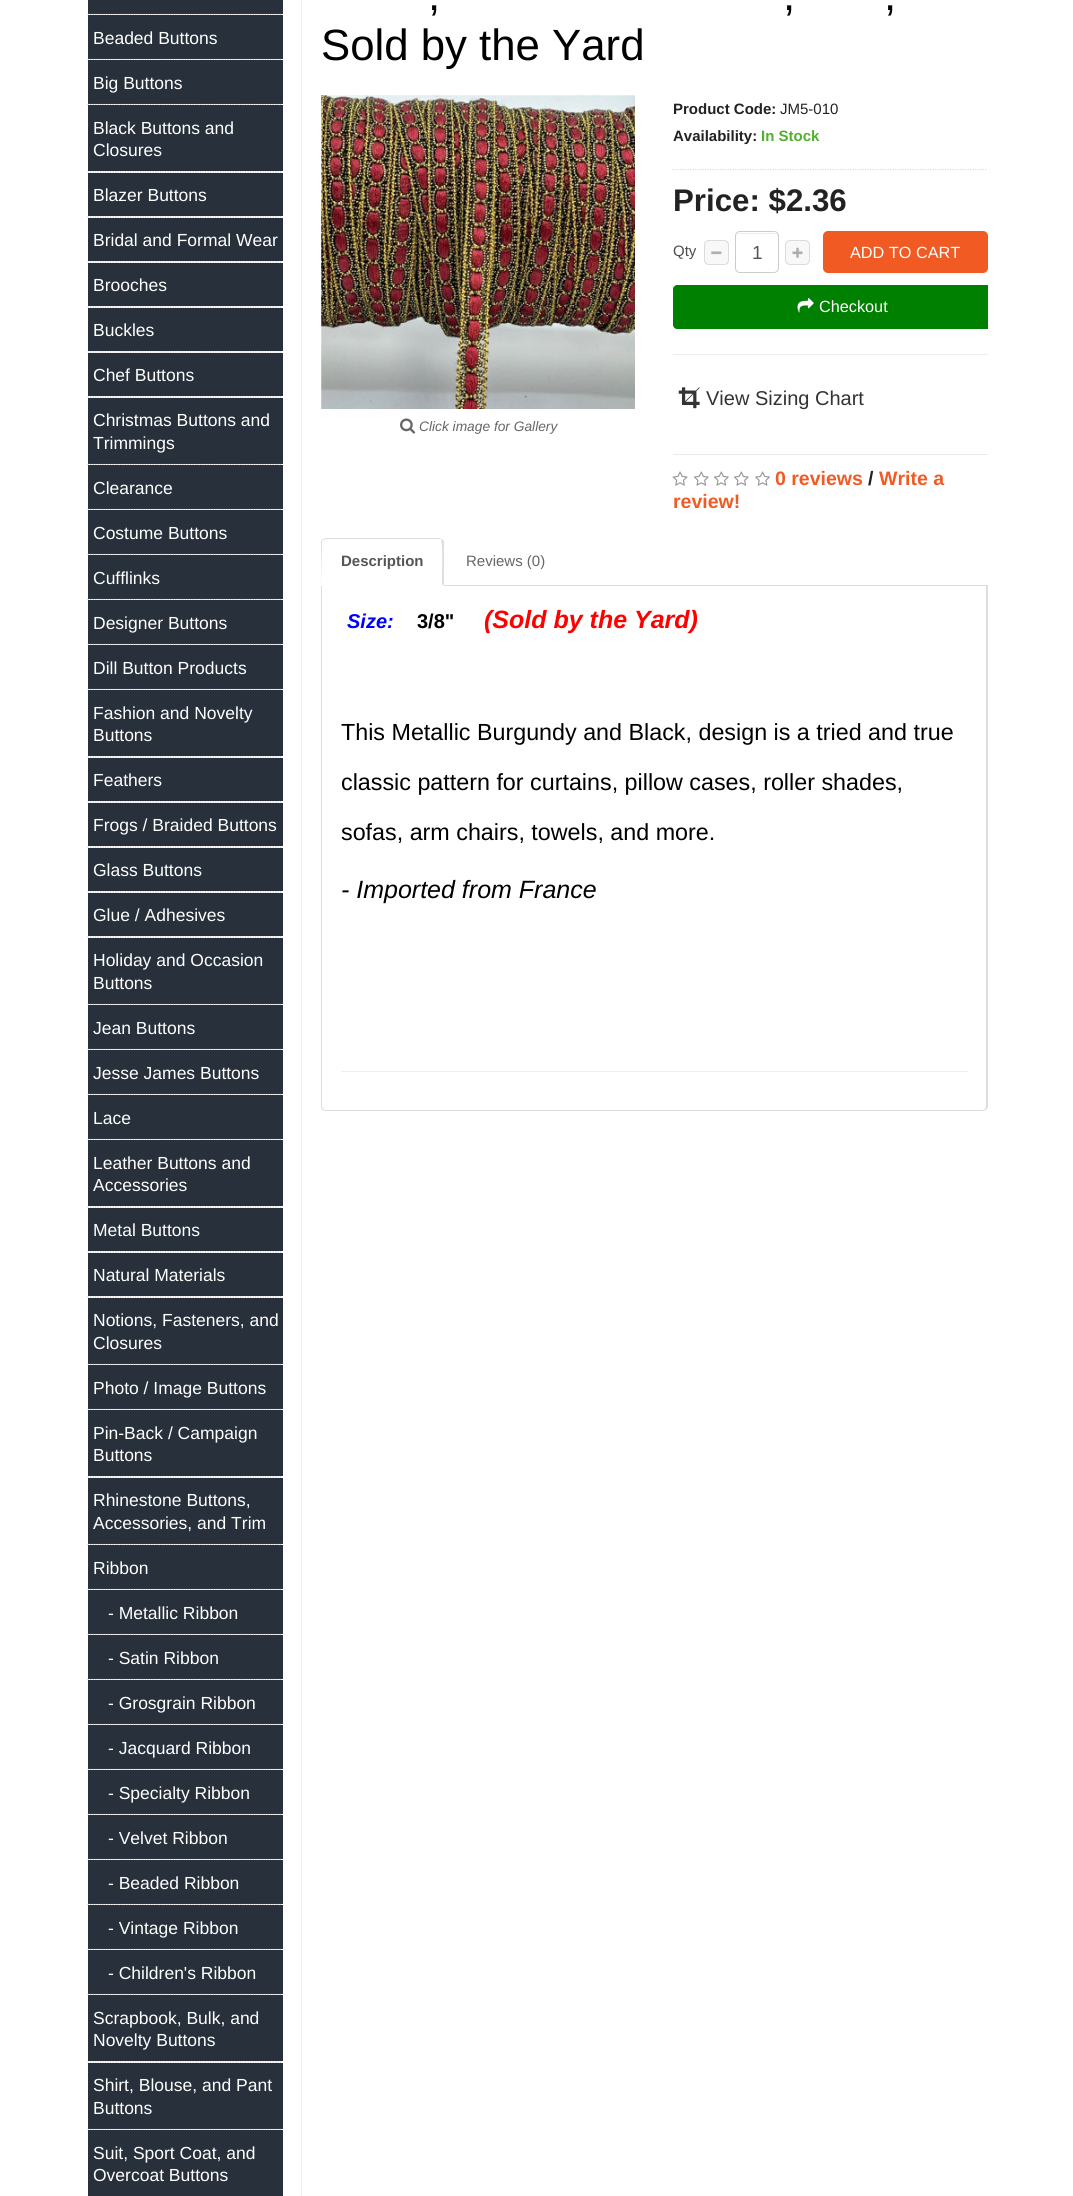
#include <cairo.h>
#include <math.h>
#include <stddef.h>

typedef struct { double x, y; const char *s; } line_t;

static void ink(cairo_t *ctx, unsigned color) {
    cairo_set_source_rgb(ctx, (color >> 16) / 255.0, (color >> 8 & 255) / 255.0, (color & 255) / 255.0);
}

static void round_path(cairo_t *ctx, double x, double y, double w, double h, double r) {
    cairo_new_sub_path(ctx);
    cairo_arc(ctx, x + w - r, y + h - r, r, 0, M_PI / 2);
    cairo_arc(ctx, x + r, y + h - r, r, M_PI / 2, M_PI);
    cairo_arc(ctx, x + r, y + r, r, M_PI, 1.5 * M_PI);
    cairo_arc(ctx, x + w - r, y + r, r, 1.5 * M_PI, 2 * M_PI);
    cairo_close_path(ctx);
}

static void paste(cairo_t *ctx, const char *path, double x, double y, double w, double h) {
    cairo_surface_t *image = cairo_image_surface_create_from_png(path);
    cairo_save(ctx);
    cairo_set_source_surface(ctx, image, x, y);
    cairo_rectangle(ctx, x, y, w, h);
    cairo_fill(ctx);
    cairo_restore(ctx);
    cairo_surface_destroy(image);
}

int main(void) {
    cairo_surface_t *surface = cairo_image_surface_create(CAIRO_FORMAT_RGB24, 1073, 2196);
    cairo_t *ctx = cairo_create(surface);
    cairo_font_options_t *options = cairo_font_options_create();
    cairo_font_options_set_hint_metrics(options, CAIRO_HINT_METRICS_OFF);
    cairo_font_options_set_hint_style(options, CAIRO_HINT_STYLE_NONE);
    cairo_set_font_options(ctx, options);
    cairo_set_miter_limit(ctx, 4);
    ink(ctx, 0xFFFFFF);
    cairo_paint(ctx);
    ink(ctx, 0xEEEEEE);
    cairo_rectangle(ctx, 301, 0, 1, 2196);
    cairo_fill(ctx);
    ink(ctx, 0x27303B);
    cairo_rectangle(ctx, 88, 0, 195, 14);
    cairo_fill(ctx);
    cairo_new_path(ctx);
    cairo_move_to(ctx, 87.5, 14.5);
    cairo_line_to(ctx, 282.5, 14.5);
    ink(ctx, 0xCCCCCC);
    cairo_set_line_width(ctx, 1.2);
    cairo_set_dash(ctx, (double[]){1.25, 1.25}, 2, 0);
    cairo_stroke(ctx);
    ink(ctx, 0x27303B);
    cairo_rectangle(ctx, 88, 15, 195, 44);
    cairo_fill(ctx);
    cairo_select_font_face(ctx, "Liberation Sans", CAIRO_FONT_SLANT_NORMAL, CAIRO_FONT_WEIGHT_NORMAL);
    cairo_set_font_size(ctx, 17.5);
    ink(ctx, 0xFFFFFF);
    cairo_move_to(ctx, 93, 44);
    cairo_show_text(ctx, "Beaded Buttons");
    cairo_new_path(ctx);
    cairo_move_to(ctx, 87.5, 59.5);
    cairo_line_to(ctx, 282.5, 59.5);
    ink(ctx, 0xCCCCCC);
    cairo_stroke(ctx);
    ink(ctx, 0x27303B);
    cairo_rectangle(ctx, 88, 60, 195, 44);
    cairo_fill(ctx);
    ink(ctx, 0xFFFFFF);
    cairo_move_to(ctx, 93, 89);
    cairo_show_text(ctx, "Big Buttons");
    cairo_new_path(ctx);
    cairo_move_to(ctx, 87.5, 104.5);
    cairo_line_to(ctx, 282.5, 104.5);
    ink(ctx, 0xCCCCCC);
    cairo_stroke(ctx);
    ink(ctx, 0x27303B);
    cairo_rectangle(ctx, 88, 105, 195, 66);
    cairo_fill(ctx);
    ink(ctx, 0xFFFFFF);
    cairo_move_to(ctx, 93, 134);
    cairo_show_text(ctx, "Black Buttons and");
    cairo_move_to(ctx, 93, 156);
    cairo_show_text(ctx, "Closures");
    cairo_new_path(ctx);
    cairo_move_to(ctx, 87.5, 172);
    cairo_line_to(ctx, 282.5, 172);
    ink(ctx, 0xCCCCCC);
    cairo_stroke(ctx);
    ink(ctx, 0x27303B);
    cairo_rectangle(ctx, 88, 173, 195, 43);
    cairo_fill(ctx);
    ink(ctx, 0xFFFFFF);
    cairo_move_to(ctx, 93, 201);
    cairo_show_text(ctx, "Blazer Buttons");
    cairo_new_path(ctx);
    cairo_move_to(ctx, 87.5, 217);
    cairo_line_to(ctx, 282.5, 217);
    ink(ctx, 0xCCCCCC);
    cairo_stroke(ctx);
    ink(ctx, 0x27303B);
    cairo_rectangle(ctx, 88, 218, 195, 43);
    cairo_fill(ctx);
    ink(ctx, 0xFFFFFF);
    cairo_move_to(ctx, 93, 246);
    cairo_show_text(ctx, "Bridal and Formal Wear");
    cairo_new_path(ctx);
    cairo_move_to(ctx, 87.5, 262);
    cairo_line_to(ctx, 282.5, 262);
    ink(ctx, 0xCCCCCC);
    cairo_stroke(ctx);
    ink(ctx, 0x27303B);
    cairo_rectangle(ctx, 88, 263, 195, 43);
    cairo_fill(ctx);
    ink(ctx, 0xFFFFFF);
    cairo_move_to(ctx, 93, 291);
    cairo_show_text(ctx, "Brooches");
    cairo_new_path(ctx);
    cairo_move_to(ctx, 87.5, 307);
    cairo_line_to(ctx, 282.5, 307);
    ink(ctx, 0xCCCCCC);
    cairo_stroke(ctx);
    ink(ctx, 0x27303B);
    cairo_rectangle(ctx, 88, 308, 195, 43);
    cairo_fill(ctx);
    ink(ctx, 0xFFFFFF);
    cairo_move_to(ctx, 93, 336);
    cairo_show_text(ctx, "Buckles");
    cairo_new_path(ctx);
    cairo_move_to(ctx, 87.5, 352);
    cairo_line_to(ctx, 282.5, 352);
    ink(ctx, 0xCCCCCC);
    cairo_stroke(ctx);
    ink(ctx, 0x27303B);
    cairo_rectangle(ctx, 88, 353, 195, 43);
    cairo_fill(ctx);
    ink(ctx, 0xFFFFFF);
    cairo_move_to(ctx, 93, 381);
    cairo_show_text(ctx, "Chef Buttons");
    cairo_new_path(ctx);
    cairo_move_to(ctx, 87.5, 397);
    cairo_line_to(ctx, 282.5, 397);
    ink(ctx, 0xCCCCCC);
    cairo_stroke(ctx);
    ink(ctx, 0x27303B);
    cairo_rectangle(ctx, 88, 398, 195, 66);
    cairo_fill(ctx);
    ink(ctx, 0xFFFFFF);
    cairo_move_to(ctx, 93, 426);
    cairo_show_text(ctx, "Christmas Buttons and");
    cairo_move_to(ctx, 93, 449);
    cairo_show_text(ctx, "Trimmings");
    cairo_new_path(ctx);
    cairo_move_to(ctx, 87.5, 464.5);
    cairo_line_to(ctx, 282.5, 464.5);
    ink(ctx, 0xCCCCCC);
    cairo_stroke(ctx);
    ink(ctx, 0x27303B);
    cairo_rectangle(ctx, 88, 465, 195, 44);
    cairo_fill(ctx);
    ink(ctx, 0xFFFFFF);
    cairo_move_to(ctx, 93, 494);
    cairo_show_text(ctx, "Clearance");
    cairo_new_path(ctx);
    cairo_move_to(ctx, 87.5, 509.5);
    cairo_line_to(ctx, 282.5, 509.5);
    ink(ctx, 0xCCCCCC);
    cairo_stroke(ctx);
    ink(ctx, 0x27303B);
    cairo_rectangle(ctx, 88, 510, 195, 44);
    cairo_fill(ctx);
    ink(ctx, 0xFFFFFF);
    cairo_move_to(ctx, 93, 539);
    cairo_show_text(ctx, "Costume Buttons");
    cairo_new_path(ctx);
    cairo_move_to(ctx, 87.5, 554.5);
    cairo_line_to(ctx, 282.5, 554.5);
    ink(ctx, 0xCCCCCC);
    cairo_stroke(ctx);
    ink(ctx, 0x27303B);
    cairo_rectangle(ctx, 88, 555, 195, 44);
    cairo_fill(ctx);
    ink(ctx, 0xFFFFFF);
    cairo_move_to(ctx, 93, 584);
    cairo_show_text(ctx, "Cufflinks");
    cairo_new_path(ctx);
    cairo_move_to(ctx, 87.5, 599.5);
    cairo_line_to(ctx, 282.5, 599.5);
    ink(ctx, 0xCCCCCC);
    cairo_stroke(ctx);
    ink(ctx, 0x27303B);
    cairo_rectangle(ctx, 88, 600, 195, 44);
    cairo_fill(ctx);
    ink(ctx, 0xFFFFFF);
    cairo_move_to(ctx, 93, 629);
    cairo_show_text(ctx, "Designer Buttons");
    cairo_new_path(ctx);
    cairo_move_to(ctx, 87.5, 644.5);
    cairo_line_to(ctx, 282.5, 644.5);
    ink(ctx, 0xCCCCCC);
    cairo_stroke(ctx);
    ink(ctx, 0x27303B);
    cairo_rectangle(ctx, 88, 645, 195, 44);
    cairo_fill(ctx);
    ink(ctx, 0xFFFFFF);
    cairo_move_to(ctx, 93, 674);
    cairo_show_text(ctx, "Dill Button Products");
    cairo_new_path(ctx);
    cairo_move_to(ctx, 87.5, 689.5);
    cairo_line_to(ctx, 282.5, 689.5);
    ink(ctx, 0xCCCCCC);
    cairo_stroke(ctx);
    ink(ctx, 0x27303B);
    cairo_rectangle(ctx, 88, 690, 195, 66);
    cairo_fill(ctx);
    ink(ctx, 0xFFFFFF);
    cairo_move_to(ctx, 93, 719);
    cairo_show_text(ctx, "Fashion and Novelty");
    cairo_move_to(ctx, 93, 741);
    cairo_show_text(ctx, "Buttons");
    cairo_new_path(ctx);
    cairo_move_to(ctx, 87.5, 757);
    cairo_line_to(ctx, 282.5, 757);
    ink(ctx, 0xCCCCCC);
    cairo_stroke(ctx);
    ink(ctx, 0x27303B);
    cairo_rectangle(ctx, 88, 758, 195, 43);
    cairo_fill(ctx);
    ink(ctx, 0xFFFFFF);
    cairo_move_to(ctx, 93, 786);
    cairo_show_text(ctx, "Feathers");
    cairo_new_path(ctx);
    cairo_move_to(ctx, 87.5, 802);
    cairo_line_to(ctx, 282.5, 802);
    ink(ctx, 0xCCCCCC);
    cairo_stroke(ctx);
    ink(ctx, 0x27303B);
    cairo_rectangle(ctx, 88, 803, 195, 43);
    cairo_fill(ctx);
    ink(ctx, 0xFFFFFF);
    cairo_move_to(ctx, 93, 831);
    cairo_show_text(ctx, "Frogs / Braided Buttons");
    cairo_new_path(ctx);
    cairo_move_to(ctx, 87.5, 847);
    cairo_line_to(ctx, 282.5, 847);
    ink(ctx, 0xCCCCCC);
    cairo_stroke(ctx);
    ink(ctx, 0x27303B);
    cairo_rectangle(ctx, 88, 848, 195, 43);
    cairo_fill(ctx);
    ink(ctx, 0xFFFFFF);
    cairo_move_to(ctx, 93, 876);
    cairo_show_text(ctx, "Glass Buttons");
    cairo_new_path(ctx);
    cairo_move_to(ctx, 87.5, 892);
    cairo_line_to(ctx, 282.5, 892);
    ink(ctx, 0xCCCCCC);
    cairo_stroke(ctx);
    ink(ctx, 0x27303B);
    cairo_rectangle(ctx, 88, 893, 195, 43);
    cairo_fill(ctx);
    ink(ctx, 0xFFFFFF);
    cairo_move_to(ctx, 93, 921);
    cairo_show_text(ctx, "Glue / Adhesives");
    cairo_new_path(ctx);
    cairo_move_to(ctx, 87.5, 937);
    cairo_line_to(ctx, 282.5, 937);
    ink(ctx, 0xCCCCCC);
    cairo_stroke(ctx);
    ink(ctx, 0x27303B);
    cairo_rectangle(ctx, 88, 938, 195, 66);
    cairo_fill(ctx);
    ink(ctx, 0xFFFFFF);
    cairo_move_to(ctx, 93, 966);
    cairo_show_text(ctx, "Holiday and Occasion");
    cairo_move_to(ctx, 93, 989);
    cairo_show_text(ctx, "Buttons");
    cairo_new_path(ctx);
    cairo_move_to(ctx, 87.5, 1004.5);
    cairo_line_to(ctx, 282.5, 1004.5);
    ink(ctx, 0xCCCCCC);
    cairo_stroke(ctx);
    ink(ctx, 0x27303B);
    cairo_rectangle(ctx, 88, 1005, 195, 44);
    cairo_fill(ctx);
    ink(ctx, 0xFFFFFF);
    cairo_move_to(ctx, 93, 1034);
    cairo_show_text(ctx, "Jean Buttons");
    cairo_new_path(ctx);
    cairo_move_to(ctx, 87.5, 1049.5);
    cairo_line_to(ctx, 282.5, 1049.5);
    ink(ctx, 0xCCCCCC);
    cairo_stroke(ctx);
    ink(ctx, 0x27303B);
    cairo_rectangle(ctx, 88, 1050, 195, 44);
    cairo_fill(ctx);
    ink(ctx, 0xFFFFFF);
    cairo_move_to(ctx, 93, 1079);
    cairo_show_text(ctx, "Jesse James Buttons");
    cairo_new_path(ctx);
    cairo_move_to(ctx, 87.5, 1094.5);
    cairo_line_to(ctx, 282.5, 1094.5);
    ink(ctx, 0xCCCCCC);
    cairo_stroke(ctx);
    ink(ctx, 0x27303B);
    cairo_rectangle(ctx, 88, 1095, 195, 44);
    cairo_fill(ctx);
    ink(ctx, 0xFFFFFF);
    cairo_move_to(ctx, 93, 1124);
    cairo_show_text(ctx, "Lace");
    cairo_new_path(ctx);
    cairo_move_to(ctx, 87.5, 1139.5);
    cairo_line_to(ctx, 282.5, 1139.5);
    ink(ctx, 0xCCCCCC);
    cairo_stroke(ctx);
    ink(ctx, 0x27303B);
    cairo_rectangle(ctx, 88, 1140, 195, 66);
    cairo_fill(ctx);
    ink(ctx, 0xFFFFFF);
    cairo_move_to(ctx, 93, 1169);
    cairo_show_text(ctx, "Leather Buttons and");
    cairo_move_to(ctx, 93, 1191);
    cairo_show_text(ctx, "Accessories");
    cairo_new_path(ctx);
    cairo_move_to(ctx, 87.5, 1207);
    cairo_line_to(ctx, 282.5, 1207);
    ink(ctx, 0xCCCCCC);
    cairo_stroke(ctx);
    ink(ctx, 0x27303B);
    cairo_rectangle(ctx, 88, 1208, 195, 43);
    cairo_fill(ctx);
    ink(ctx, 0xFFFFFF);
    cairo_move_to(ctx, 93, 1236);
    cairo_show_text(ctx, "Metal Buttons");
    cairo_new_path(ctx);
    cairo_move_to(ctx, 87.5, 1252);
    cairo_line_to(ctx, 282.5, 1252);
    ink(ctx, 0xCCCCCC);
    cairo_stroke(ctx);
    ink(ctx, 0x27303B);
    cairo_rectangle(ctx, 88, 1253, 195, 43);
    cairo_fill(ctx);
    ink(ctx, 0xFFFFFF);
    cairo_move_to(ctx, 93, 1281);
    cairo_show_text(ctx, "Natural Materials");
    cairo_new_path(ctx);
    cairo_move_to(ctx, 87.5, 1297);
    cairo_line_to(ctx, 282.5, 1297);
    ink(ctx, 0xCCCCCC);
    cairo_stroke(ctx);
    ink(ctx, 0x27303B);
    cairo_rectangle(ctx, 88, 1298, 195, 66);
    cairo_fill(ctx);
    ink(ctx, 0xFFFFFF);
    cairo_move_to(ctx, 93, 1326);
    cairo_show_text(ctx, "Notions, Fasteners, and");
    cairo_move_to(ctx, 93, 1349);
    cairo_show_text(ctx, "Closures");
    cairo_new_path(ctx);
    cairo_move_to(ctx, 87.5, 1364.5);
    cairo_line_to(ctx, 282.5, 1364.5);
    ink(ctx, 0xCCCCCC);
    cairo_stroke(ctx);
    ink(ctx, 0x27303B);
    cairo_rectangle(ctx, 88, 1365, 195, 44);
    cairo_fill(ctx);
    ink(ctx, 0xFFFFFF);
    cairo_move_to(ctx, 93, 1394);
    cairo_show_text(ctx, "Photo / Image Buttons");
    cairo_new_path(ctx);
    cairo_move_to(ctx, 87.5, 1409.5);
    cairo_line_to(ctx, 282.5, 1409.5);
    ink(ctx, 0xCCCCCC);
    cairo_stroke(ctx);
    ink(ctx, 0x27303B);
    cairo_rectangle(ctx, 88, 1410, 195, 66);
    cairo_fill(ctx);
    ink(ctx, 0xFFFFFF);
    cairo_move_to(ctx, 93, 1439);
    cairo_show_text(ctx, "Pin-Back / Campaign");
    cairo_move_to(ctx, 93, 1461);
    cairo_show_text(ctx, "Buttons");
    cairo_new_path(ctx);
    cairo_move_to(ctx, 87.5, 1477);
    cairo_line_to(ctx, 282.5, 1477);
    ink(ctx, 0xCCCCCC);
    cairo_stroke(ctx);
    ink(ctx, 0x27303B);
    cairo_rectangle(ctx, 88, 1478, 195, 66);
    cairo_fill(ctx);
    ink(ctx, 0xFFFFFF);
    cairo_move_to(ctx, 93, 1506);
    cairo_show_text(ctx, "Rhinestone Buttons,");
    cairo_move_to(ctx, 93, 1529);
    cairo_show_text(ctx, "Accessories, and Trim");
    cairo_new_path(ctx);
    cairo_move_to(ctx, 87.5, 1544.5);
    cairo_line_to(ctx, 282.5, 1544.5);
    ink(ctx, 0xCCCCCC);
    cairo_stroke(ctx);
    ink(ctx, 0x27303B);
    cairo_rectangle(ctx, 88, 1545, 195, 44);
    cairo_fill(ctx);
    ink(ctx, 0xFFFFFF);
    cairo_move_to(ctx, 93, 1574);
    cairo_show_text(ctx, "Ribbon");
    cairo_new_path(ctx);
    cairo_move_to(ctx, 87.5, 1589.5);
    cairo_line_to(ctx, 282.5, 1589.5);
    ink(ctx, 0xCCCCCC);
    cairo_stroke(ctx);
    ink(ctx, 0x27303B);
    cairo_rectangle(ctx, 88, 1590, 195, 44);
    cairo_fill(ctx);
    ink(ctx, 0xFFFFFF);
    cairo_move_to(ctx, 108, 1619);
    cairo_show_text(ctx, "- Metallic Ribbon");
    cairo_new_path(ctx);
    cairo_move_to(ctx, 87.5, 1634.5);
    cairo_line_to(ctx, 282.5, 1634.5);
    ink(ctx, 0xCCCCCC);
    cairo_stroke(ctx);
    ink(ctx, 0x27303B);
    cairo_rectangle(ctx, 88, 1635, 195, 44);
    cairo_fill(ctx);
    ink(ctx, 0xFFFFFF);
    cairo_move_to(ctx, 108, 1664);
    cairo_show_text(ctx, "- Satin Ribbon");
    cairo_new_path(ctx);
    cairo_move_to(ctx, 87.5, 1679.5);
    cairo_line_to(ctx, 282.5, 1679.5);
    ink(ctx, 0xCCCCCC);
    cairo_stroke(ctx);
    ink(ctx, 0x27303B);
    cairo_rectangle(ctx, 88, 1680, 195, 44);
    cairo_fill(ctx);
    ink(ctx, 0xFFFFFF);
    cairo_move_to(ctx, 108, 1709);
    cairo_show_text(ctx, "- Grosgrain Ribbon");
    cairo_new_path(ctx);
    cairo_move_to(ctx, 87.5, 1724.5);
    cairo_line_to(ctx, 282.5, 1724.5);
    ink(ctx, 0xCCCCCC);
    cairo_stroke(ctx);
    ink(ctx, 0x27303B);
    cairo_rectangle(ctx, 88, 1725, 195, 44);
    cairo_fill(ctx);
    ink(ctx, 0xFFFFFF);
    cairo_move_to(ctx, 108, 1754);
    cairo_show_text(ctx, "- Jacquard Ribbon");
    cairo_new_path(ctx);
    cairo_move_to(ctx, 87.5, 1769.5);
    cairo_line_to(ctx, 282.5, 1769.5);
    ink(ctx, 0xCCCCCC);
    cairo_stroke(ctx);
    ink(ctx, 0x27303B);
    cairo_rectangle(ctx, 88, 1770, 195, 44);
    cairo_fill(ctx);
    ink(ctx, 0xFFFFFF);
    cairo_move_to(ctx, 108, 1799);
    cairo_show_text(ctx, "- Specialty Ribbon");
    cairo_new_path(ctx);
    cairo_move_to(ctx, 87.5, 1814.5);
    cairo_line_to(ctx, 282.5, 1814.5);
    ink(ctx, 0xCCCCCC);
    cairo_stroke(ctx);
    ink(ctx, 0x27303B);
    cairo_rectangle(ctx, 88, 1815, 195, 44);
    cairo_fill(ctx);
    ink(ctx, 0xFFFFFF);
    cairo_move_to(ctx, 108, 1844);
    cairo_show_text(ctx, "- Velvet Ribbon");
    cairo_new_path(ctx);
    cairo_move_to(ctx, 87.5, 1859.5);
    cairo_line_to(ctx, 282.5, 1859.5);
    ink(ctx, 0xCCCCCC);
    cairo_stroke(ctx);
    ink(ctx, 0x27303B);
    cairo_rectangle(ctx, 88, 1860, 195, 44);
    cairo_fill(ctx);
    ink(ctx, 0xFFFFFF);
    cairo_move_to(ctx, 108, 1889);
    cairo_show_text(ctx, "- Beaded Ribbon");
    cairo_new_path(ctx);
    cairo_move_to(ctx, 87.5, 1904.5);
    cairo_line_to(ctx, 282.5, 1904.5);
    ink(ctx, 0xCCCCCC);
    cairo_stroke(ctx);
    ink(ctx, 0x27303B);
    cairo_rectangle(ctx, 88, 1905, 195, 44);
    cairo_fill(ctx);
    ink(ctx, 0xFFFFFF);
    cairo_move_to(ctx, 108, 1934);
    cairo_show_text(ctx, "- Vintage Ribbon");
    cairo_new_path(ctx);
    cairo_move_to(ctx, 87.5, 1949.5);
    cairo_line_to(ctx, 282.5, 1949.5);
    ink(ctx, 0xCCCCCC);
    cairo_stroke(ctx);
    ink(ctx, 0x27303B);
    cairo_rectangle(ctx, 88, 1950, 195, 44);
    cairo_fill(ctx);
    ink(ctx, 0xFFFFFF);
    cairo_move_to(ctx, 108, 1979);
    cairo_show_text(ctx, "- Children's Ribbon");
    cairo_new_path(ctx);
    cairo_move_to(ctx, 87.5, 1994.5);
    cairo_line_to(ctx, 282.5, 1994.5);
    ink(ctx, 0xCCCCCC);
    cairo_stroke(ctx);
    ink(ctx, 0x27303B);
    cairo_rectangle(ctx, 88, 1995, 195, 66);
    cairo_fill(ctx);
    ink(ctx, 0xFFFFFF);
    cairo_move_to(ctx, 93, 2024);
    cairo_show_text(ctx, "Scrapbook, Bulk, and");
    cairo_move_to(ctx, 93, 2046);
    cairo_show_text(ctx, "Novelty Buttons");
    cairo_new_path(ctx);
    cairo_move_to(ctx, 87.5, 2062);
    cairo_line_to(ctx, 282.5, 2062);
    ink(ctx, 0xCCCCCC);
    cairo_stroke(ctx);
    ink(ctx, 0x27303B);
    cairo_rectangle(ctx, 88, 2063, 195, 66);
    cairo_fill(ctx);
    ink(ctx, 0xFFFFFF);
    cairo_move_to(ctx, 93, 2091);
    cairo_show_text(ctx, "Shirt, Blouse, and Pant");
    cairo_move_to(ctx, 93, 2114);
    cairo_show_text(ctx, "Buttons");
    cairo_new_path(ctx);
    cairo_move_to(ctx, 87.5, 2129.5);
    cairo_line_to(ctx, 282.5, 2129.5);
    ink(ctx, 0xCCCCCC);
    cairo_stroke(ctx);
    ink(ctx, 0x27303B);
    cairo_rectangle(ctx, 88, 2130, 195, 66);
    cairo_fill(ctx);
    ink(ctx, 0xFFFFFF);
    cairo_move_to(ctx, 93, 2159);
    cairo_show_text(ctx, "Suit, Sport Coat, and");
    cairo_move_to(ctx, 93, 2181);
    cairo_show_text(ctx, "Overcoat Buttons");
    cairo_set_font_size(ctx, 43.75);
    ink(ctx, 0x000000);
    {
        static const line_t items[] = {
            {428, 10, ","},
            {783, 10, ","},
            {884, 10, ","},
            {321, 60, "Sold by the Yard"},
        };
        for (size_t i = 0; i < sizeof items / sizeof *items; i++) {
            cairo_move_to(ctx, items[i].x, items[i].y);
            cairo_show_text(ctx, items[i].s);
        }
    }
    paste(ctx, "media/1.png", 321, 95, 314, 314);
    paste(ctx, "media/2.png", 400, 418, 16, 16);
    cairo_select_font_face(ctx, "Liberation Sans", CAIRO_FONT_SLANT_ITALIC, CAIRO_FONT_WEIGHT_NORMAL);
    cairo_set_font_size(ctx, 13.75);
    ink(ctx, 0x666666);
    cairo_move_to(ctx, 419, 431);
    cairo_show_text(ctx, "Click image for Gallery");
    cairo_select_font_face(ctx, "Liberation Sans", CAIRO_FONT_SLANT_NORMAL, CAIRO_FONT_WEIGHT_BOLD);
    cairo_set_font_size(ctx, 15);
    ink(ctx, 0x222222);
    cairo_move_to(ctx, 673, 114);
    cairo_show_text(ctx, "Product Code:");
    cairo_select_font_face(ctx, "Liberation Sans", CAIRO_FONT_SLANT_NORMAL, CAIRO_FONT_WEIGHT_NORMAL);
    cairo_move_to(ctx, 780, 114);
    cairo_show_text(ctx, "JM5-010");
    cairo_select_font_face(ctx, "Liberation Sans", CAIRO_FONT_SLANT_NORMAL, CAIRO_FONT_WEIGHT_BOLD);
    cairo_move_to(ctx, 673, 141);
    cairo_show_text(ctx, "Availability:");
    ink(ctx, 0x53AF2E);
    cairo_move_to(ctx, 761, 141);
    cairo_show_text(ctx, "In Stock");
    cairo_new_path(ctx);
    cairo_move_to(ctx, 672.5, 169.5);
    cairo_line_to(ctx, 987.5, 169.5);
    ink(ctx, 0xDDDDDD);
    cairo_stroke(ctx);
    cairo_set_font_size(ctx, 31.25);
    ink(ctx, 0x222222);
    cairo_move_to(ctx, 673, 211);
    cairo_show_text(ctx, "Price: $2.36");
    ink(ctx, 0xEAE9E9);
    cairo_rectangle(ctx, 673, 454, 315, 1);
    cairo_fill(ctx);
    cairo_select_font_face(ctx, "Liberation Sans", CAIRO_FONT_SLANT_NORMAL, CAIRO_FONT_WEIGHT_NORMAL);
    cairo_set_font_size(ctx, 15);
    ink(ctx, 0x4D4D4D);
    cairo_move_to(ctx, 673, 256);
    cairo_show_text(ctx, "Qty");
    ink(ctx, 0xF8F8F8);
    round_path(ctx, 704, 240, 25, 25, 5);
    cairo_fill(ctx);
    paste(ctx, "media/3.png", 711, 251, 11, 4);
    round_path(ctx, 704.5, 240.5, 24, 24, 4.5);
    ink(ctx, 0xDBDBDB);
    cairo_set_line_width(ctx, 1);
    cairo_set_dash(ctx, NULL, 0, 0);
    cairo_stroke(ctx);
    ink(ctx, 0xECECEC);
    cairo_new_path(ctx);
    cairo_move_to(ctx, 740, 234);
    cairo_line_to(ctx, 774, 234);
    cairo_curve_to(ctx, 776, 234, 778, 235, 778, 238);
    cairo_curve_to(ctx, 778, 232, 773, 233, 768, 233);
    cairo_line_to(ctx, 746, 233);
    cairo_curve_to(ctx, 741, 233, 736, 232, 736, 238);
    cairo_curve_to(ctx, 736, 235, 738, 234, 740, 234);
    cairo_close_path(ctx);
    cairo_fill(ctx);
    round_path(ctx, 735.5, 231.5, 43, 41, 4.5);
    ink(ctx, 0xCCCCCC);
    cairo_stroke(ctx);
    cairo_set_font_size(ctx, 19);
    ink(ctx, 0x555555);
    cairo_move_to(ctx, 752, 259);
    cairo_show_text(ctx, "1");
    ink(ctx, 0xF8F8F8);
    round_path(ctx, 785, 240, 25, 25, 5);
    cairo_fill(ctx);
    paste(ctx, "media/4.png", 792, 247, 11, 11);
    round_path(ctx, 785.5, 240.5, 24, 24, 4.5);
    ink(ctx, 0xDBDBDB);
    cairo_stroke(ctx);
    ink(ctx, 0xF15A23);
    round_path(ctx, 823, 231, 165, 42, 5);
    cairo_fill(ctx);
    cairo_set_font_size(ctx, 16.25);
    ink(ctx, 0xFFFFFF);
    cairo_move_to(ctx, 850, 258);
    cairo_show_text(ctx, "ADD TO CART");
    ink(ctx, 0x008000);
    cairo_new_path(ctx);
    cairo_move_to(ctx, 677, 285);
    cairo_line_to(ctx, 988, 285);
    cairo_line_to(ctx, 988, 329);
    cairo_line_to(ctx, 677, 329);
    cairo_curve_to(ctx, 675, 329, 673, 327, 673, 325);
    cairo_line_to(ctx, 673, 289);
    cairo_curve_to(ctx, 673, 287, 675, 285, 677, 285);
    cairo_close_path(ctx);
    cairo_fill(ctx);
    paste(ctx, "media/5.png", 797, 298, 17, 15);
    ink(ctx, 0xFFFFFF);
    cairo_move_to(ctx, 819, 312);
    cairo_show_text(ctx, "Checkout");
    ink(ctx, 0xEEEEEE);
    cairo_rectangle(ctx, 673, 354, 315, 1);
    cairo_fill(ctx);
    paste(ctx, "media/6.png", 678, 387, 22, 22);
    cairo_set_font_size(ctx, 20);
    ink(ctx, 0x333333);
    cairo_move_to(ctx, 706, 405);
    cairo_show_text(ctx, "View Sizing Chart");
    paste(ctx, "media/7.png", 672, 471, 16, 15);
    paste(ctx, "media/8.png", 693, 471, 16, 15);
    paste(ctx, "media/8.png", 713, 471, 16, 15);
    paste(ctx, "media/8.png", 733, 471, 16, 15);
    paste(ctx, "media/9.png", 755, 471, 15, 15);
    cairo_select_font_face(ctx, "Liberation Sans", CAIRO_FONT_SLANT_NORMAL, CAIRO_FONT_WEIGHT_BOLD);
    cairo_set_font_size(ctx, 19.5);
    ink(ctx, 0xF15A23);
    cairo_move_to(ctx, 775, 485);
    cairo_show_text(ctx, "0 reviews");
    ink(ctx, 0x222222);
    cairo_move_to(ctx, 868, 485);
    cairo_show_text(ctx, "/");
    ink(ctx, 0xF15A23);
    cairo_move_to(ctx, 879, 485);
    cairo_show_text(ctx, "Write a");
    cairo_move_to(ctx, 673, 508);
    cairo_show_text(ctx, "review!");
    ink(ctx, 0xDDDDDD);
    cairo_rectangle(ctx, 444, 585, 544, 1);
    cairo_fill(ctx);
    cairo_new_path(ctx);
    cairo_move_to(ctx, 326, 538);
    cairo_line_to(ctx, 323, 539);
    cairo_line_to(ctx, 323, 540);
    cairo_line_to(ctx, 326, 539);
    cairo_line_to(ctx, 441, 539);
    cairo_line_to(ctx, 441, 540);
    cairo_line_to(ctx, 442, 539);
    cairo_line_to(ctx, 439, 538);
    cairo_close_path(ctx);
    cairo_fill(ctx);
    cairo_new_path(ctx);
    cairo_move_to(ctx, 442, 539);
    cairo_line_to(ctx, 444, 541);
    cairo_line_to(ctx, 444, 586);
    cairo_line_to(ctx, 442, 584);
    cairo_curve_to(ctx, 442, 579, 443, 542, 441, 540);
    cairo_close_path(ctx);
    cairo_fill(ctx);
    cairo_new_path(ctx);
    cairo_move_to(ctx, 321, 541);
    cairo_line_to(ctx, 323, 539);
    cairo_line_to(ctx, 323, 540);
    cairo_line_to(ctx, 322, 541);
    cairo_line_to(ctx, 322, 585);
    cairo_line_to(ctx, 322, 586);
    cairo_close_path(ctx);
    cairo_fill(ctx);
    cairo_set_font_size(ctx, 15);
    ink(ctx, 0x555555);
    cairo_move_to(ctx, 341, 566);
    cairo_show_text(ctx, "Description");
    cairo_select_font_face(ctx, "Liberation Sans", CAIRO_FONT_SLANT_NORMAL, CAIRO_FONT_WEIGHT_NORMAL);
    ink(ctx, 0x666666);
    cairo_move_to(ctx, 466, 566);
    cairo_show_text(ctx, "Reviews (0)");
    ink(ctx, 0xDDDDDD);
    cairo_set_fill_rule(ctx, CAIRO_FILL_RULE_EVEN_ODD);
    cairo_new_path(ctx);
    cairo_move_to(ctx, 321, 586);
    cairo_line_to(ctx, 988, 586);
    cairo_line_to(ctx, 988, 1106);
    cairo_curve_to(ctx, 988, 1109, 985, 1111, 982, 1111);
    cairo_line_to(ctx, 326, 1111);
    cairo_curve_to(ctx, 323, 1111, 321, 1109, 321, 1106);
    cairo_close_path(ctx);
    cairo_move_to(ctx, 322, 586);
    cairo_line_to(ctx, 986, 586);
    cairo_line_to(ctx, 986, 1106);
    cairo_curve_to(ctx, 986, 1108, 985, 1110, 982, 1110);
    cairo_line_to(ctx, 326, 1110);
    cairo_curve_to(ctx, 324, 1110, 322, 1108, 322, 1106);
    cairo_close_path(ctx);
    cairo_fill(ctx);
    cairo_select_font_face(ctx, "Liberation Sans", CAIRO_FONT_SLANT_ITALIC, CAIRO_FONT_WEIGHT_BOLD);
    cairo_set_font_size(ctx, 20);
    ink(ctx, 0x0000FF);
    cairo_move_to(ctx, 347, 628);
    cairo_show_text(ctx, "Size:");
    cairo_select_font_face(ctx, "Liberation Sans", CAIRO_FONT_SLANT_NORMAL, CAIRO_FONT_WEIGHT_BOLD);
    ink(ctx, 0x000000);
    cairo_move_to(ctx, 417, 628);
    cairo_show_text(ctx, "3/8\"");
    cairo_select_font_face(ctx, "Liberation Sans", CAIRO_FONT_SLANT_ITALIC, CAIRO_FONT_WEIGHT_BOLD);
    cairo_set_font_size(ctx, 25);
    ink(ctx, 0xFF0000);
    cairo_move_to(ctx, 484, 628);
    cairo_show_text(ctx, "(Sold by the Yard)");
    cairo_select_font_face(ctx, "Liberation Sans", CAIRO_FONT_SLANT_NORMAL, CAIRO_FONT_WEIGHT_NORMAL);
    cairo_set_font_size(ctx, 23.3);
    ink(ctx, 0x000000);
    {
        static const line_t items[] = {
            {341, 740, "This Metallic Burgundy and Black, design is a tried and true"},
            {341, 790, "classic pattern for curtains, pillow cases, roller shades,"},
            {341, 840, "sofas, arm chairs, towels, and more."},
        };
        for (size_t i = 0; i < sizeof items / sizeof *items; i++) {
            cairo_move_to(ctx, items[i].x, items[i].y);
            cairo_show_text(ctx, items[i].s);
        }
    }
    cairo_select_font_face(ctx, "Liberation Sans", CAIRO_FONT_SLANT_ITALIC, CAIRO_FONT_WEIGHT_NORMAL);
    cairo_set_font_size(ctx, 25);
    cairo_move_to(ctx, 341, 898);
    cairo_show_text(ctx, "- Imported from France");
    ink(ctx, 0xEEEEEE);
    cairo_rectangle(ctx, 341, 1071, 627, 1);
    cairo_fill(ctx);
    cairo_surface_write_to_png(surface, "image.png");
    cairo_font_options_destroy(options);
    cairo_destroy(ctx);
    cairo_surface_destroy(surface);
    return 0;
}
